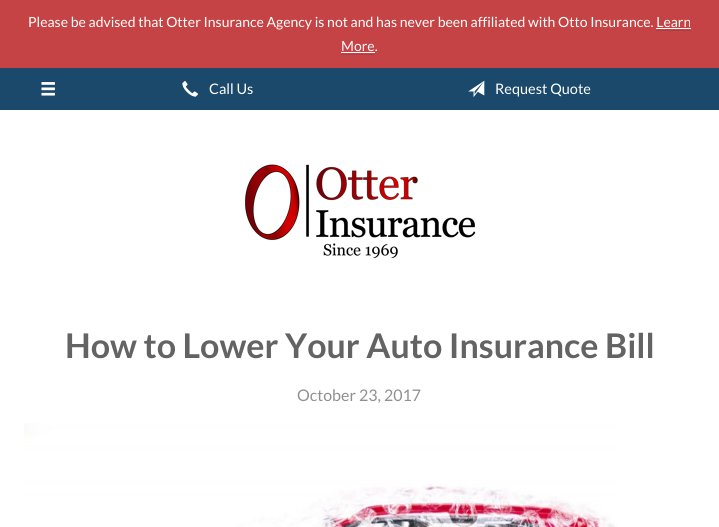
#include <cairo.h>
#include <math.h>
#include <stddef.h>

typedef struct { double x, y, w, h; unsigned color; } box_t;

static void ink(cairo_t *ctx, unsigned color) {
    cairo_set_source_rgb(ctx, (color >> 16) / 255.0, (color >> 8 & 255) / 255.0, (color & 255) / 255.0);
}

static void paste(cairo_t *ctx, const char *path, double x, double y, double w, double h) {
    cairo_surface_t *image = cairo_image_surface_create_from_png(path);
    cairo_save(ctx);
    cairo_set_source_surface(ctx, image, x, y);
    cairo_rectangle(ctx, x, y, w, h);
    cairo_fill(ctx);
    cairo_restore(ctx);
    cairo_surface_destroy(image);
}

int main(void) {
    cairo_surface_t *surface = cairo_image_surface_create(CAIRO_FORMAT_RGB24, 719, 527);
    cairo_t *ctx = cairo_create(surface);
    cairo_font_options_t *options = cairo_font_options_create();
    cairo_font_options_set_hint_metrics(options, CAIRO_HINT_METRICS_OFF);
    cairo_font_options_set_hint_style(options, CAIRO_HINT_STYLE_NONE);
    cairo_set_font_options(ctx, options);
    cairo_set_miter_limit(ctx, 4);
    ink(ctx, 0xC54344);
    cairo_paint(ctx);
    cairo_select_font_face(ctx, "Lato", CAIRO_FONT_SLANT_NORMAL, CAIRO_FONT_WEIGHT_NORMAL);
    cairo_set_font_size(ctx, 14);
    ink(ctx, 0xFFFFFF);
    cairo_move_to(ctx, 28, 27);
    cairo_show_text(ctx, "Please be advised that Otter Insurance Agency is not and has never been affiliated with Otto Insurance. Learn");
    cairo_move_to(ctx, 341, 51);
    cairo_show_text(ctx, "More.");
    {
        static const box_t items[] = {
            {656, 30, 35, 1, 0xB13C3D},
            {341, 54, 34, 1, 0xB13C3D},
            {656, 28, 35, 1, 0xFFFFFF},
            {341, 52, 34, 1, 0xFFFFFF},
            {0, 68, 719, 42, 0x1B496B},
        };
        for (size_t i = 0; i < sizeof items / sizeof *items; i++) {
            ink(ctx, items[i].color);
            cairo_rectangle(ctx, items[i].x, items[i].y, items[i].w, items[i].h);
            cairo_fill(ctx);
        }
    }
    paste(ctx, "media/1.png", 41, 82, 14, 14);
    paste(ctx, "media/2.png", 182, 81, 16, 16);
    cairo_set_font_size(ctx, 14.5);
    ink(ctx, 0xFFFFFF);
    cairo_move_to(ctx, 209, 94);
    cairo_show_text(ctx, "Call Us");
    paste(ctx, "media/3.png", 468, 80, 17, 17);
    cairo_move_to(ctx, 495, 94);
    cairo_show_text(ctx, "Request Quote");
    cairo_rectangle(ctx, 0, 110, 719, 417);
    cairo_fill(ctx);
    paste(ctx, "media/4.png", 245, 164, 231, 95);
    cairo_select_font_face(ctx, "Lato", CAIRO_FONT_SLANT_NORMAL, CAIRO_FONT_WEIGHT_BOLD);
    cairo_set_font_size(ctx, 34);
    ink(ctx, 0x636363);
    cairo_move_to(ctx, 65, 358);
    cairo_show_text(ctx, "How to Lower Your Auto Insurance Bill");
    cairo_select_font_face(ctx, "Lato", CAIRO_FONT_SLANT_NORMAL, CAIRO_FONT_WEIGHT_NORMAL);
    cairo_set_font_size(ctx, 16);
    ink(ctx, 0x909090);
    cairo_move_to(ctx, 297, 401);
    cairo_show_text(ctx, "October 23, 2017");
    paste(ctx, "media/5.png", 24, 423, 593, 104);
    cairo_surface_write_to_png(surface, "image.png");
    cairo_font_options_destroy(options);
    cairo_destroy(ctx);
    cairo_surface_destroy(surface);
    return 0;
}
